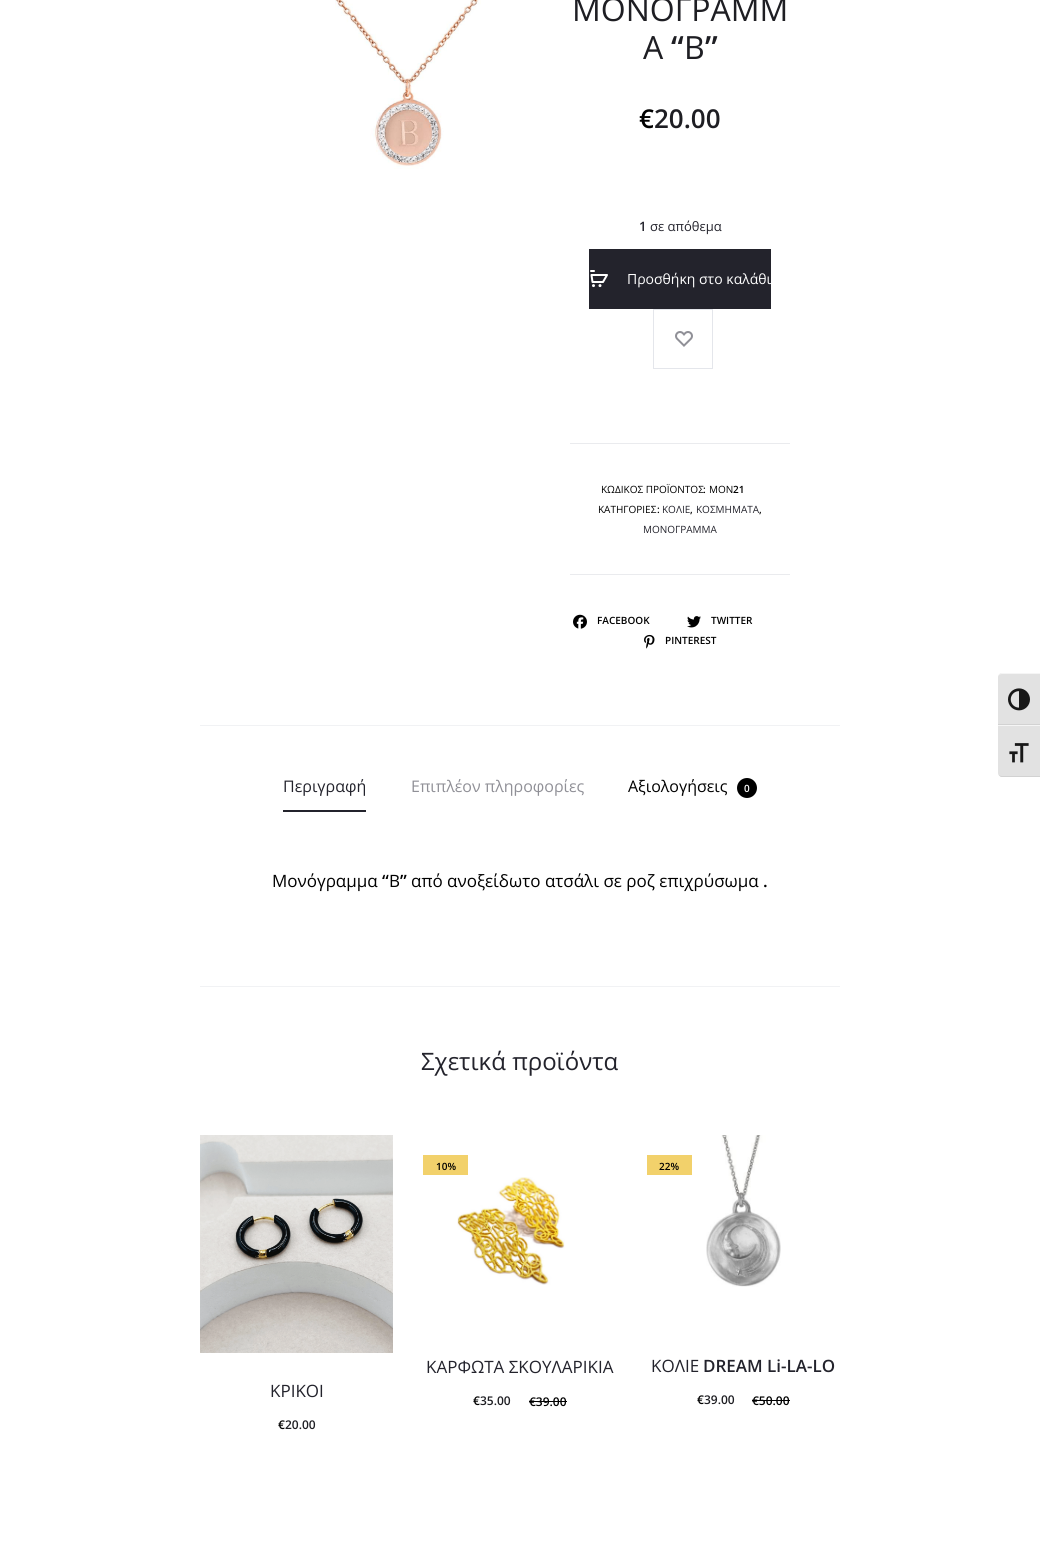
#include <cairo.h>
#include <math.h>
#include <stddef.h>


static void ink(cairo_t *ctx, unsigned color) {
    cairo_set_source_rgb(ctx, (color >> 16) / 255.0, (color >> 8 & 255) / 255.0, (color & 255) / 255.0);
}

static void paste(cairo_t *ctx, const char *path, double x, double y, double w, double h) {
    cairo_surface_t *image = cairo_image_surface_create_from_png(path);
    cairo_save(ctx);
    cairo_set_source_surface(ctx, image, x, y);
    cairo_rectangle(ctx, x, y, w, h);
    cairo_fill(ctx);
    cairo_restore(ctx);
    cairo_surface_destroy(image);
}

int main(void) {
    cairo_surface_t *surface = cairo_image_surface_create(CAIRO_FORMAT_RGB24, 1040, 1564);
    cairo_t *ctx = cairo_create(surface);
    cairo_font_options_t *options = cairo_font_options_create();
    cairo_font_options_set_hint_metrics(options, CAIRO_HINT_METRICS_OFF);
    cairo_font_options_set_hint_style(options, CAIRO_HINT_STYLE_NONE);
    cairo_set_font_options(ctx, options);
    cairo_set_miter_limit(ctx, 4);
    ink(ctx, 0xFFFFFF);
    cairo_paint(ctx);
    paste(ctx, "media/1.png", 335, 0, 146, 169);
    cairo_select_font_face(ctx, "Open Sans", CAIRO_FONT_SLANT_NORMAL, CAIRO_FONT_WEIGHT_NORMAL);
    cairo_set_font_size(ctx, 32);
    ink(ctx, 0x1E1E23);
    cairo_move_to(ctx, 572, 21);
    cairo_show_text(ctx, "ΜΟΝΟΓΡΑΜΜ");
    cairo_move_to(ctx, 643, 59);
    cairo_show_text(ctx, "Α");
    cairo_select_font_face(ctx, "Open Sans SemiBold", CAIRO_FONT_SLANT_NORMAL, CAIRO_FONT_WEIGHT_NORMAL);
    cairo_move_to(ctx, 671, 59);
    cairo_show_text(ctx, "“");
    cairo_select_font_face(ctx, "Open Sans", CAIRO_FONT_SLANT_NORMAL, CAIRO_FONT_WEIGHT_NORMAL);
    cairo_move_to(ctx, 684, 59);
    cairo_show_text(ctx, "Β");
    cairo_select_font_face(ctx, "Open Sans SemiBold", CAIRO_FONT_SLANT_NORMAL, CAIRO_FONT_WEIGHT_NORMAL);
    cairo_move_to(ctx, 705, 59);
    cairo_show_text(ctx, "”");
    cairo_set_font_size(ctx, 26);
    ink(ctx, 0x000000);
    cairo_move_to(ctx, 639, 128);
    cairo_show_text(ctx, "€");
    ink(ctx, 0x1E1E23);
    cairo_move_to(ctx, 654, 128);
    cairo_show_text(ctx, "20.00");
    cairo_set_font_size(ctx, 13);
    ink(ctx, 0x23232C);
    cairo_move_to(ctx, 639, 231);
    cairo_show_text(ctx, "1");
    cairo_select_font_face(ctx, "Open Sans", CAIRO_FONT_SLANT_NORMAL, CAIRO_FONT_WEIGHT_NORMAL);
    cairo_move_to(ctx, 650, 231);
    cairo_show_text(ctx, "σε απόθεμα");
    cairo_rectangle(ctx, 589, 249, 182, 60);
    cairo_fill(ctx);
    paste(ctx, "media/2.png", 590, 270, 18, 18);
    cairo_set_font_size(ctx, 14);
    ink(ctx, 0xFFFFFF);
    cairo_move_to(ctx, 627, 284);
    cairo_show_text(ctx, "Προσθήκη στο καλάθι");
    cairo_rectangle(ctx, 653.5, 309.5, 59, 59);
    ink(ctx, 0xE4E6EB);
    cairo_set_line_width(ctx, 1);
    cairo_stroke(ctx);
    paste(ctx, "media/3.png", 675, 331, 18, 16);
    ink(ctx, 0xEAEBEE);
    cairo_rectangle(ctx, 570, 443, 220, 1);
    cairo_fill(ctx);
    cairo_rectangle(ctx, 570, 574, 220, 1);
    cairo_fill(ctx);
    cairo_set_font_size(ctx, 10);
    ink(ctx, 0x000000);
    cairo_move_to(ctx, 601, 493);
    cairo_show_text(ctx, "ΚΩΔΙΚΟΣ ΠΡΟΪΟΝΤΟΣ");
    cairo_select_font_face(ctx, "Open Sans SemiBold", CAIRO_FONT_SLANT_NORMAL, CAIRO_FONT_WEIGHT_NORMAL);
    cairo_move_to(ctx, 703, 493);
    cairo_show_text(ctx, ":");
    cairo_select_font_face(ctx, "Open Sans", CAIRO_FONT_SLANT_NORMAL, CAIRO_FONT_WEIGHT_NORMAL);
    cairo_move_to(ctx, 709, 493);
    cairo_show_text(ctx, "ΜΟΝ");
    cairo_select_font_face(ctx, "Open Sans SemiBold", CAIRO_FONT_SLANT_NORMAL, CAIRO_FONT_WEIGHT_NORMAL);
    cairo_move_to(ctx, 733, 493);
    cairo_show_text(ctx, "21");
    cairo_select_font_face(ctx, "Open Sans", CAIRO_FONT_SLANT_NORMAL, CAIRO_FONT_WEIGHT_NORMAL);
    cairo_move_to(ctx, 598, 513);
    cairo_show_text(ctx, "ΚΑΤΗΓΟΡΙΕΣ");
    cairo_select_font_face(ctx, "Open Sans SemiBold", CAIRO_FONT_SLANT_NORMAL, CAIRO_FONT_WEIGHT_NORMAL);
    cairo_move_to(ctx, 657, 513);
    cairo_show_text(ctx, ":");
    cairo_select_font_face(ctx, "Open Sans", CAIRO_FONT_SLANT_NORMAL, CAIRO_FONT_WEIGHT_NORMAL);
    ink(ctx, 0x23232C);
    cairo_move_to(ctx, 662, 513);
    cairo_show_text(ctx, "ΚΟΛΙΕ");
    cairo_select_font_face(ctx, "Open Sans SemiBold", CAIRO_FONT_SLANT_NORMAL, CAIRO_FONT_WEIGHT_NORMAL);
    ink(ctx, 0x000000);
    cairo_move_to(ctx, 690, 513);
    cairo_show_text(ctx, ",");
    cairo_select_font_face(ctx, "Open Sans", CAIRO_FONT_SLANT_NORMAL, CAIRO_FONT_WEIGHT_NORMAL);
    ink(ctx, 0x23232C);
    cairo_move_to(ctx, 696, 513);
    cairo_show_text(ctx, "ΚΟΣΜΗΜΑΤΑ");
    cairo_select_font_face(ctx, "Open Sans SemiBold", CAIRO_FONT_SLANT_NORMAL, CAIRO_FONT_WEIGHT_NORMAL);
    ink(ctx, 0x000000);
    cairo_move_to(ctx, 759, 513);
    cairo_show_text(ctx, ",");
    cairo_select_font_face(ctx, "Open Sans", CAIRO_FONT_SLANT_NORMAL, CAIRO_FONT_WEIGHT_NORMAL);
    ink(ctx, 0x23232C);
    cairo_move_to(ctx, 643, 533);
    cairo_show_text(ctx, "ΜΟΝΟΓΡΑΜΜΑ");
    paste(ctx, "media/4.png", 573, 614, 14, 15);
    cairo_select_font_face(ctx, "Open Sans SemiBold", CAIRO_FONT_SLANT_NORMAL, CAIRO_FONT_WEIGHT_NORMAL);
    ink(ctx, 0x000000);
    cairo_move_to(ctx, 597, 624);
    cairo_show_text(ctx, "FACEBOOK");
    paste(ctx, "media/5.png", 687, 616, 14, 12);
    cairo_move_to(ctx, 711, 624);
    cairo_show_text(ctx, "TWITTER");
    paste(ctx, "media/6.png", 644, 634, 11, 15);
    cairo_move_to(ctx, 665, 644);
    cairo_show_text(ctx, "PINTEREST");
    ink(ctx, 0xF1F2F4);
    cairo_rectangle(ctx, 200, 725, 640, 1);
    cairo_fill(ctx);
    cairo_select_font_face(ctx, "Open Sans", CAIRO_FONT_SLANT_NORMAL, CAIRO_FONT_WEIGHT_NORMAL);
    cairo_set_font_size(ctx, 16);
    ink(ctx, 0x23232C);
    cairo_move_to(ctx, 283, 792);
    cairo_show_text(ctx, "Περιγραφή");
    cairo_rectangle(ctx, 283, 810, 83, 2);
    cairo_fill(ctx);
    ink(ctx, 0x909097);
    cairo_move_to(ctx, 411, 792);
    cairo_show_text(ctx, "Επιπλέον πληροφορίες");
    ink(ctx, 0x000000);
    cairo_move_to(ctx, 628, 792);
    cairo_show_text(ctx, "Αξιολογήσεις");
    cairo_new_path(ctx);
    cairo_arc(ctx, 747, 788, 10, 0, 2 * M_PI);
    cairo_fill(ctx);
    cairo_select_font_face(ctx, "Open Sans SemiBold", CAIRO_FONT_SLANT_NORMAL, CAIRO_FONT_WEIGHT_NORMAL);
    cairo_set_font_size(ctx, 10);
    ink(ctx, 0xFFFFFF);
    cairo_move_to(ctx, 744, 792);
    cairo_show_text(ctx, "0");
    cairo_select_font_face(ctx, "Open Sans", CAIRO_FONT_SLANT_NORMAL, CAIRO_FONT_WEIGHT_NORMAL);
    cairo_set_font_size(ctx, 17);
    ink(ctx, 0x000000);
    cairo_move_to(ctx, 272, 887);
    cairo_show_text(ctx, "Μονόγραμμα");
    cairo_select_font_face(ctx, "Open Sans SemiBold", CAIRO_FONT_SLANT_NORMAL, CAIRO_FONT_WEIGHT_NORMAL);
    cairo_move_to(ctx, 382, 887);
    cairo_show_text(ctx, "“");
    cairo_select_font_face(ctx, "Open Sans", CAIRO_FONT_SLANT_NORMAL, CAIRO_FONT_WEIGHT_NORMAL);
    cairo_move_to(ctx, 389, 887);
    cairo_show_text(ctx, "Β");
    cairo_select_font_face(ctx, "Open Sans SemiBold", CAIRO_FONT_SLANT_NORMAL, CAIRO_FONT_WEIGHT_NORMAL);
    cairo_move_to(ctx, 400, 887);
    cairo_show_text(ctx, "”");
    cairo_select_font_face(ctx, "Open Sans", CAIRO_FONT_SLANT_NORMAL, CAIRO_FONT_WEIGHT_NORMAL);
    cairo_move_to(ctx, 411, 887);
    cairo_show_text(ctx, "από ανοξείδωτο ατσάλι σε ροζ επιχρύσωμα");
    cairo_select_font_face(ctx, "Open Sans SemiBold", CAIRO_FONT_SLANT_NORMAL, CAIRO_FONT_WEIGHT_NORMAL);
    cairo_move_to(ctx, 763, 887);
    cairo_show_text(ctx, ".");
    ink(ctx, 0xF1F2F4);
    cairo_rectangle(ctx, 200, 986, 640, 1);
    cairo_fill(ctx);
    cairo_select_font_face(ctx, "Open Sans", CAIRO_FONT_SLANT_NORMAL, CAIRO_FONT_WEIGHT_NORMAL);
    cairo_set_font_size(ctx, 24);
    ink(ctx, 0x23232C);
    cairo_move_to(ctx, 421, 1070);
    cairo_show_text(ctx, "Σχετικά προϊόντα");
    paste(ctx, "media/7.png", 200, 1135, 193, 218);
    cairo_set_font_size(ctx, 17);
    cairo_move_to(ctx, 270, 1397);
    cairo_show_text(ctx, "ΚΡΙΚΟΙ");
    cairo_select_font_face(ctx, "Open Sans SemiBold", CAIRO_FONT_SLANT_NORMAL, CAIRO_FONT_WEIGHT_NORMAL);
    cairo_set_font_size(ctx, 12);
    ink(ctx, 0x000000);
    cairo_move_to(ctx, 278, 1429);
    cairo_show_text(ctx, "€");
    ink(ctx, 0x1E1E23);
    cairo_move_to(ctx, 285, 1429);
    cairo_show_text(ctx, "20.00");
    ink(ctx, 0xF2D16B);
    cairo_rectangle(ctx, 423, 1155, 45, 20);
    cairo_fill(ctx);
    cairo_set_font_size(ctx, 10);
    ink(ctx, 0x000000);
    cairo_move_to(ctx, 436, 1170);
    cairo_show_text(ctx, "10%");
    paste(ctx, "media/8.png", 457, 1177, 108, 108);
    cairo_select_font_face(ctx, "Open Sans", CAIRO_FONT_SLANT_NORMAL, CAIRO_FONT_WEIGHT_NORMAL);
    cairo_set_font_size(ctx, 17);
    ink(ctx, 0x23232C);
    cairo_move_to(ctx, 426, 1373);
    cairo_show_text(ctx, "ΚΑΡΦΩΤΑ ΣΚΟΥΛΑΡΙΚΙΑ");
    cairo_select_font_face(ctx, "Open Sans SemiBold", CAIRO_FONT_SLANT_NORMAL, CAIRO_FONT_WEIGHT_NORMAL);
    cairo_set_font_size(ctx, 12);
    ink(ctx, 0x000000);
    cairo_move_to(ctx, 473, 1405);
    cairo_show_text(ctx, "€");
    ink(ctx, 0x1E1E23);
    cairo_move_to(ctx, 480, 1405);
    cairo_show_text(ctx, "35.00");
    ink(ctx, 0x000000);
    cairo_move_to(ctx, 529, 1406);
    cairo_show_text(ctx, "€39.00");
    cairo_rectangle(ctx, 529, 1401, 38, 1);
    cairo_fill(ctx);
    ink(ctx, 0xF2D16B);
    cairo_rectangle(ctx, 647, 1155, 45, 20);
    cairo_fill(ctx);
    cairo_set_font_size(ctx, 10);
    ink(ctx, 0x000000);
    cairo_move_to(ctx, 659, 1170);
    cairo_show_text(ctx, "22%");
    paste(ctx, "media/9.png", 706, 1135, 75, 152);
    cairo_select_font_face(ctx, "Open Sans", CAIRO_FONT_SLANT_NORMAL, CAIRO_FONT_WEIGHT_NORMAL);
    cairo_set_font_size(ctx, 17);
    ink(ctx, 0x23232C);
    cairo_move_to(ctx, 651, 1372);
    cairo_show_text(ctx, "ΚΟΛΙΕ");
    cairo_select_font_face(ctx, "Open Sans SemiBold", CAIRO_FONT_SLANT_NORMAL, CAIRO_FONT_WEIGHT_NORMAL);
    cairo_move_to(ctx, 703, 1372);
    cairo_show_text(ctx, "DREAM Li-LA-LO");
    cairo_set_font_size(ctx, 12);
    ink(ctx, 0x000000);
    cairo_move_to(ctx, 697, 1404);
    cairo_show_text(ctx, "€");
    ink(ctx, 0x1E1E23);
    cairo_move_to(ctx, 704, 1404);
    cairo_show_text(ctx, "39.00");
    ink(ctx, 0x000000);
    cairo_move_to(ctx, 752, 1405);
    cairo_show_text(ctx, "€50.00");
    cairo_rectangle(ctx, 752, 1400, 38, 1);
    cairo_fill(ctx);
    ink(ctx, 0xE2E2E2);
    cairo_new_path(ctx);
    cairo_move_to(ctx, 1002, 673);
    cairo_line_to(ctx, 1040, 673);
    cairo_line_to(ctx, 1040, 725);
    cairo_line_to(ctx, 998, 725);
    cairo_line_to(ctx, 998, 677);
    cairo_curve_to(ctx, 998, 675, 1000, 673, 1002, 673);
    cairo_close_path(ctx);
    cairo_fill(ctx);
    ink(ctx, 0xF5F5F5);
    cairo_new_path(ctx);
    cairo_move_to(ctx, 1002, 674);
    cairo_line_to(ctx, 1040, 674);
    cairo_line_to(ctx, 1040, 673);
    cairo_line_to(ctx, 1002, 673);
    cairo_curve_to(ctx, 1000, 673, 998, 675, 998, 677);
    cairo_curve_to(ctx, 998, 675, 1000, 674, 1002, 674);
    cairo_close_path(ctx);
    cairo_fill(ctx);
    ink(ctx, 0xD2D2D2);
    cairo_rectangle(ctx, 998, 724, 42, 1);
    cairo_fill(ctx);
    paste(ctx, "media/10.png", 1008, 688, 22, 23);
    ink(ctx, 0xE2E2E2);
    cairo_new_path(ctx);
    cairo_move_to(ctx, 998, 725);
    cairo_line_to(ctx, 1040, 725);
    cairo_line_to(ctx, 1040, 777);
    cairo_line_to(ctx, 1002, 777);
    cairo_curve_to(ctx, 1000, 777, 998, 775, 998, 773);
    cairo_close_path(ctx);
    cairo_fill(ctx);
    ink(ctx, 0xF5F5F5);
    cairo_rectangle(ctx, 998, 725, 42, 1);
    cairo_fill(ctx);
    ink(ctx, 0xD2D2D2);
    cairo_new_path(ctx);
    cairo_move_to(ctx, 1040, 777);
    cairo_line_to(ctx, 1040, 776);
    cairo_line_to(ctx, 1002, 776);
    cairo_curve_to(ctx, 1000, 776, 998, 775, 998, 773);
    cairo_curve_to(ctx, 998, 775, 1000, 777, 1002, 777);
    cairo_close_path(ctx);
    cairo_fill(ctx);
    paste(ctx, "media/11.png", 1009, 743, 20, 20);
    cairo_surface_write_to_png(surface, "image.png");
    cairo_font_options_destroy(options);
    cairo_destroy(ctx);
    cairo_surface_destroy(surface);
    return 0;
}
